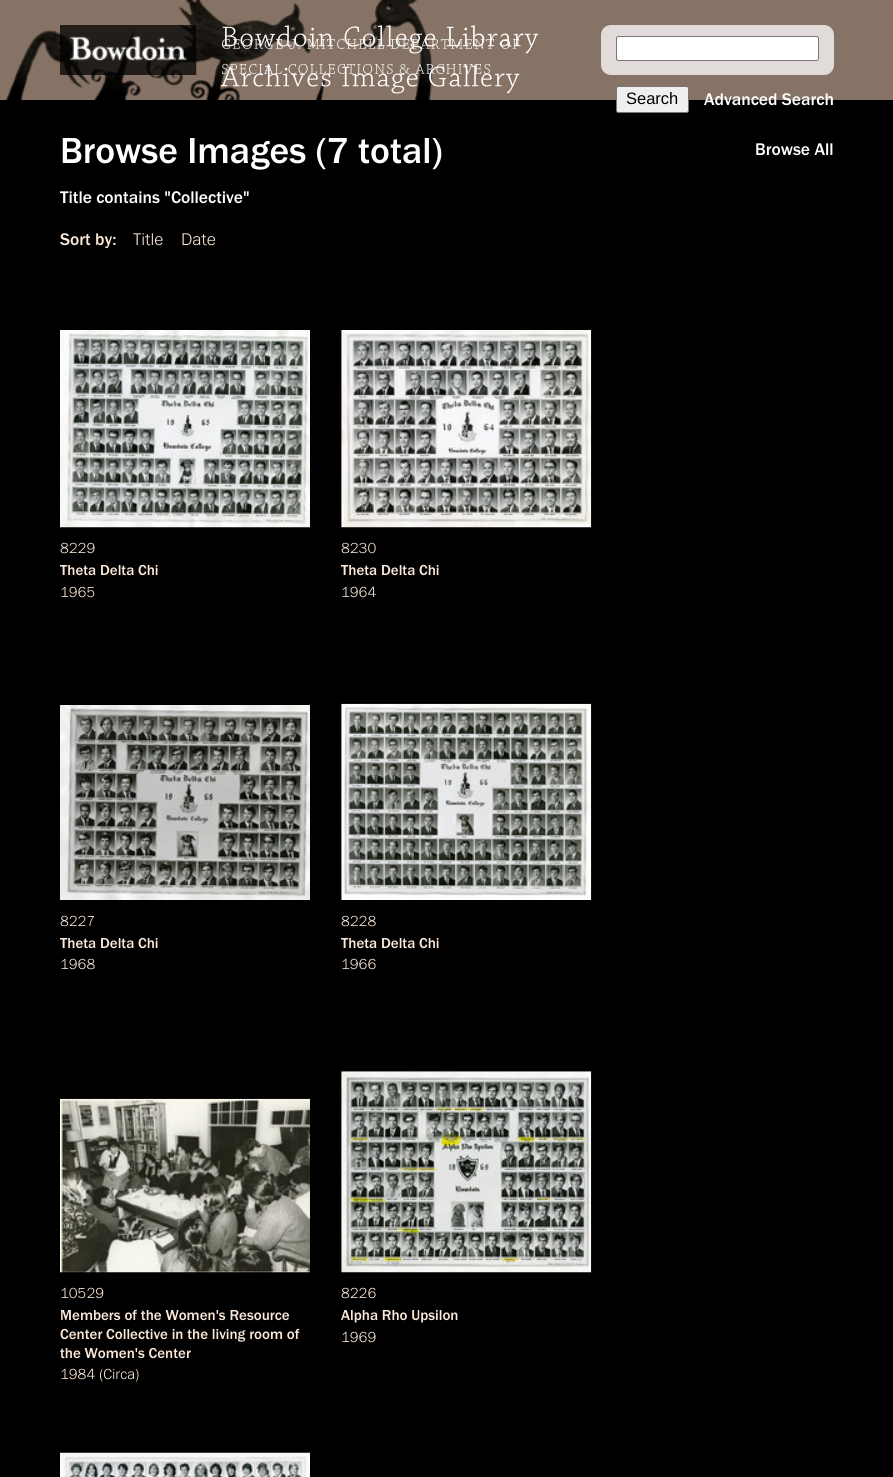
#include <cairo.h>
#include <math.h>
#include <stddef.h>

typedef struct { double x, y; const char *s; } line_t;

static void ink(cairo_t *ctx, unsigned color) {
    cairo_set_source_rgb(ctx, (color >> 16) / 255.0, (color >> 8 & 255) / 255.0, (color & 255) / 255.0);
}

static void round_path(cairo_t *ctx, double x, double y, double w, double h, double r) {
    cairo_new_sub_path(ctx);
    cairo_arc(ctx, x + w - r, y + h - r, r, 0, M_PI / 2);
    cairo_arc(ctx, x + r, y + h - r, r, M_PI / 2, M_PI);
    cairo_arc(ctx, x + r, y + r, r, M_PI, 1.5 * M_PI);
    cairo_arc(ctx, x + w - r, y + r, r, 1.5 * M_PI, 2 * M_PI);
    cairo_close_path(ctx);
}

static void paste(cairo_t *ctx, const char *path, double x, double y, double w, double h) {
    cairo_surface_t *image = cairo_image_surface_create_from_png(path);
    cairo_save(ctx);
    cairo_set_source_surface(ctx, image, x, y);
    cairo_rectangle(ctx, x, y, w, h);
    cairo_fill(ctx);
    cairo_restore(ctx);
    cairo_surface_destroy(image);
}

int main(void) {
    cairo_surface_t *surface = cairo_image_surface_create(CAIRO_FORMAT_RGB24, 893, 1477);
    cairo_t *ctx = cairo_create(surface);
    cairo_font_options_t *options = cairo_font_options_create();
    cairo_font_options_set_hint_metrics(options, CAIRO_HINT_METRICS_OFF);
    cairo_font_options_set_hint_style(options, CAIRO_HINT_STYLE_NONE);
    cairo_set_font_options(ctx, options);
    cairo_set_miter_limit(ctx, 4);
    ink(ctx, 0x000000);
    cairo_paint(ctx);
    ink(ctx, 0x877365);
    cairo_rectangle(ctx, 0, 0, 893, 100);
    cairo_fill(ctx);
    paste(ctx, "media/1.png", 6, 0, 427, 100);
    paste(ctx, "media/2.png", 60, 25, 137, 50);
    paste(ctx, "media/3.png", 222, 25, 317, 29);
    paste(ctx, "media/4.png", 220, 65, 300, 29);
    paste(ctx, "media/5.png", 222, 38, 298, 11);
    paste(ctx, "media/6.png", 221, 63, 269, 11);
    ink(ctx, 0xE1DCD9);
    round_path(ctx, 601, 25, 233, 50, 10);
    cairo_fill(ctx);
    ink(ctx, 0xFFFFFF);
    round_path(ctx, 616.5, 36.5, 202, 24, 2);
    cairo_fill_preserve(ctx);
    ink(ctx, 0x767676);
    cairo_set_line_width(ctx, 1);
    cairo_stroke(ctx);
    ink(ctx, 0xEFEFEF);
    round_path(ctx, 616.5, 86.5, 72, 26, 2);
    cairo_fill_preserve(ctx);
    ink(ctx, 0x767676);
    cairo_stroke(ctx);
    cairo_select_font_face(ctx, "Liberation Sans", CAIRO_FONT_SLANT_NORMAL, CAIRO_FONT_WEIGHT_NORMAL);
    cairo_set_font_size(ctx, 16.5);
    ink(ctx, 0x000000);
    cairo_move_to(ctx, 626, 104);
    cairo_show_text(ctx, "Search");
    cairo_select_font_face(ctx, "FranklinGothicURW", CAIRO_FONT_SLANT_NORMAL, CAIRO_FONT_WEIGHT_NORMAL);
    cairo_set_font_size(ctx, 17.5);
    ink(ctx, 0xFFFFFF);
    cairo_move_to(ctx, 704, 105);
    cairo_show_text(ctx, "Advanced Search");
    cairo_move_to(ctx, 755, 155);
    cairo_show_text(ctx, "Browse All");
    cairo_set_font_size(ctx, 37.5);
    cairo_move_to(ctx, 60, 163);
    cairo_show_text(ctx, "Browse Images (7 total)");
    cairo_set_font_size(ctx, 17.5);
    cairo_move_to(ctx, 60, 203);
    cairo_show_text(ctx, "Title contains \"Collective\"");
    ink(ctx, 0xFCE9D9);
    cairo_move_to(ctx, 60, 245);
    cairo_show_text(ctx, "Sort by:");
    cairo_select_font_face(ctx, "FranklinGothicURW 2", CAIRO_FONT_SLANT_NORMAL, CAIRO_FONT_WEIGHT_NORMAL);
    cairo_move_to(ctx, 133, 245);
    cairo_show_text(ctx, "Title");
    cairo_move_to(ctx, 181, 245);
    cairo_show_text(ctx, "Date");
    paste(ctx, "media/7.png", 60, 330, 250, 198);
    cairo_set_font_size(ctx, 15);
    cairo_move_to(ctx, 60, 553);
    cairo_show_text(ctx, "8229");
    cairo_select_font_face(ctx, "FranklinGothicURW", CAIRO_FONT_SLANT_NORMAL, CAIRO_FONT_WEIGHT_NORMAL);
    cairo_move_to(ctx, 60, 575);
    cairo_show_text(ctx, "Theta Delta Chi");
    cairo_select_font_face(ctx, "FranklinGothicURW 2", CAIRO_FONT_SLANT_NORMAL, CAIRO_FONT_WEIGHT_NORMAL);
    cairo_move_to(ctx, 60, 597);
    cairo_show_text(ctx, "1965");
    paste(ctx, "media/8.png", 341, 330, 251, 198);
    cairo_move_to(ctx, 341, 553);
    cairo_show_text(ctx, "8230");
    cairo_select_font_face(ctx, "FranklinGothicURW", CAIRO_FONT_SLANT_NORMAL, CAIRO_FONT_WEIGHT_NORMAL);
    cairo_move_to(ctx, 341, 575);
    cairo_show_text(ctx, "Theta Delta Chi");
    cairo_select_font_face(ctx, "FranklinGothicURW 2", CAIRO_FONT_SLANT_NORMAL, CAIRO_FONT_WEIGHT_NORMAL);
    cairo_move_to(ctx, 341, 597);
    cairo_show_text(ctx, "1964");
    paste(ctx, "media/9.png", 60, 705, 250, 195);
    cairo_move_to(ctx, 60, 926);
    cairo_show_text(ctx, "8227");
    cairo_select_font_face(ctx, "FranklinGothicURW", CAIRO_FONT_SLANT_NORMAL, CAIRO_FONT_WEIGHT_NORMAL);
    cairo_move_to(ctx, 60, 948);
    cairo_show_text(ctx, "Theta Delta Chi");
    cairo_select_font_face(ctx, "FranklinGothicURW 2", CAIRO_FONT_SLANT_NORMAL, CAIRO_FONT_WEIGHT_NORMAL);
    cairo_move_to(ctx, 60, 969);
    cairo_show_text(ctx, "1968");
    paste(ctx, "media/10.png", 341, 703, 251, 197);
    cairo_move_to(ctx, 341, 926);
    cairo_show_text(ctx, "8228");
    cairo_select_font_face(ctx, "FranklinGothicURW", CAIRO_FONT_SLANT_NORMAL, CAIRO_FONT_WEIGHT_NORMAL);
    cairo_move_to(ctx, 341, 948);
    cairo_show_text(ctx, "Theta Delta Chi");
    cairo_select_font_face(ctx, "FranklinGothicURW 2", CAIRO_FONT_SLANT_NORMAL, CAIRO_FONT_WEIGHT_NORMAL);
    cairo_move_to(ctx, 341, 969);
    cairo_show_text(ctx, "1966");
    paste(ctx, "media/11.png", 60, 1098, 250, 175);
    cairo_move_to(ctx, 60, 1298);
    cairo_show_text(ctx, "10529");
    cairo_select_font_face(ctx, "FranklinGothicURW", CAIRO_FONT_SLANT_NORMAL, CAIRO_FONT_WEIGHT_NORMAL);
    {
        static const line_t items[] = {
            {60, 1320, "Members of the Women's Resource"},
            {60, 1339, "Center Collective in the living room of"},
            {60, 1358, "the Women's Center"},
        };
        for (size_t i = 0; i < sizeof items / sizeof *items; i++) {
            cairo_move_to(ctx, items[i].x, items[i].y);
            cairo_show_text(ctx, items[i].s);
        }
    }
    cairo_select_font_face(ctx, "FranklinGothicURW 2", CAIRO_FONT_SLANT_NORMAL, CAIRO_FONT_WEIGHT_NORMAL);
    cairo_move_to(ctx, 60, 1379);
    cairo_show_text(ctx, "1984 (Circa)");
    paste(ctx, "media/12.png", 341, 1071, 251, 202);
    cairo_move_to(ctx, 341, 1298);
    cairo_show_text(ctx, "8226");
    cairo_select_font_face(ctx, "FranklinGothicURW", CAIRO_FONT_SLANT_NORMAL, CAIRO_FONT_WEIGHT_NORMAL);
    cairo_move_to(ctx, 341, 1320);
    cairo_show_text(ctx, "Alpha Rho Upsilon");
    cairo_select_font_face(ctx, "FranklinGothicURW 2", CAIRO_FONT_SLANT_NORMAL, CAIRO_FONT_WEIGHT_NORMAL);
    cairo_move_to(ctx, 341, 1342);
    cairo_show_text(ctx, "1969");
    paste(ctx, "media/13.png", 60, 1452, 250, 25);
    cairo_surface_write_to_png(surface, "image.png");
    cairo_font_options_destroy(options);
    cairo_destroy(ctx);
    cairo_surface_destroy(surface);
    return 0;
}
